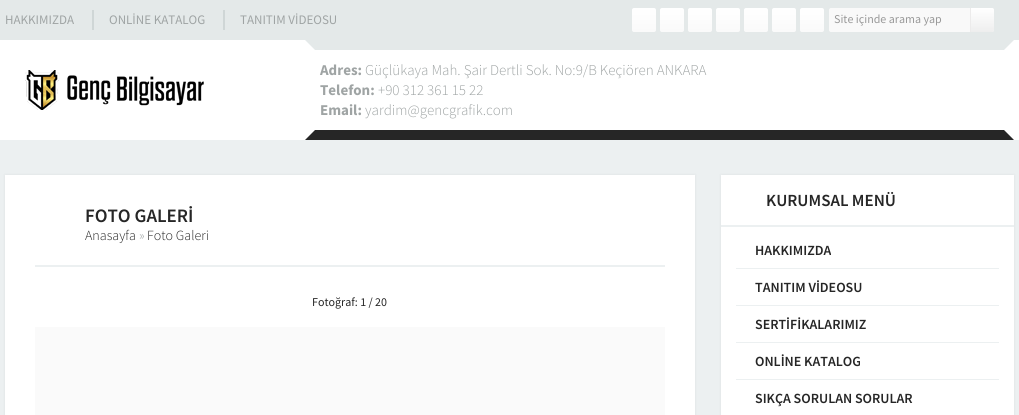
#include <cairo.h>
#include <math.h>
#include <stddef.h>


static void ink(cairo_t *ctx, unsigned color) {
    cairo_set_source_rgb(ctx, (color >> 16) / 255.0, (color >> 8 & 255) / 255.0, (color & 255) / 255.0);
}

static void round_path(cairo_t *ctx, double x, double y, double w, double h, double r) {
    cairo_new_sub_path(ctx);
    cairo_arc(ctx, x + w - r, y + h - r, r, 0, M_PI / 2);
    cairo_arc(ctx, x + r, y + h - r, r, M_PI / 2, M_PI);
    cairo_arc(ctx, x + r, y + r, r, M_PI, 1.5 * M_PI);
    cairo_arc(ctx, x + w - r, y + r, r, 1.5 * M_PI, 2 * M_PI);
    cairo_close_path(ctx);
}

static void blur_box(cairo_t *ctx, double x, double y, double w, double h, double r, double blur, double alpha) {
    cairo_push_group_with_content(ctx, CAIRO_CONTENT_ALPHA);
    cairo_set_operator(ctx, CAIRO_OPERATOR_SOURCE);
    for (int i = 15; i >= -15 && fmin(w, h) + blur * i / 3 > 0; i -= 2) {
        double e = blur * i / 6;
        cairo_set_source_rgba(ctx, 0, 0, 0, alpha * erfc((i - 1) / 8.5) / 2);
        round_path(ctx, x - e, y - e, w + 2 * e, h + 2 * e, fmax(0, fmin(r + e + blur * .6, fmin(w, h) / 2 + e)));
        cairo_fill(ctx);
    }
    cairo_pattern_t *soft = cairo_pop_group(ctx);
    cairo_mask(ctx, soft);
    cairo_pattern_destroy(soft);
}

static void paste(cairo_t *ctx, const char *path, double x, double y, double w, double h) {
    cairo_surface_t *image = cairo_image_surface_create_from_png(path);
    cairo_save(ctx);
    cairo_set_source_surface(ctx, image, x, y);
    cairo_rectangle(ctx, x, y, w, h);
    cairo_fill(ctx);
    cairo_restore(ctx);
    cairo_surface_destroy(image);
}

int main(void) {
    cairo_surface_t *surface = cairo_image_surface_create(CAIRO_FORMAT_RGB24, 1019, 415);
    cairo_t *ctx = cairo_create(surface);
    cairo_font_options_t *options = cairo_font_options_create();
    cairo_font_options_set_hint_metrics(options, CAIRO_HINT_METRICS_OFF);
    cairo_font_options_set_hint_style(options, CAIRO_HINT_STYLE_NONE);
    cairo_set_font_options(ctx, options);
    cairo_set_miter_limit(ctx, 4);
    cairo_pattern_t *gradient;
    ink(ctx, 0xECF0F1);
    cairo_paint(ctx);
    ink(ctx, 0xFFFFFF);
    cairo_rectangle(ctx, 0, 40, 1019, 100);
    cairo_fill(ctx);
    ink(ctx, 0xE4E9E9);
    cairo_rectangle(ctx, 0, 0, 1019, 40);
    cairo_fill(ctx);
    cairo_select_font_face(ctx, "Source Sans Pro", CAIRO_FONT_SLANT_NORMAL, CAIRO_FONT_WEIGHT_NORMAL);
    cairo_set_font_size(ctx, 13);
    ink(ctx, 0x9FA4A4);
    cairo_move_to(ctx, 5, 24);
    cairo_show_text(ctx, "HAKKIMIZDA");
    ink(ctx, 0xCFD6D6);
    cairo_rectangle(ctx, 92, 10, 2, 20);
    cairo_fill(ctx);
    ink(ctx, 0x9FA4A4);
    cairo_move_to(ctx, 109, 24);
    cairo_show_text(ctx, "ONLİNE KATALOG");
    ink(ctx, 0xCFD6D6);
    cairo_rectangle(ctx, 223, 10, 2, 20);
    cairo_fill(ctx);
    ink(ctx, 0x9FA4A4);
    cairo_move_to(ctx, 240, 24);
    cairo_show_text(ctx, "TANITIM VİDEOSU");
    gradient = cairo_pattern_create_linear(644, 32, 644, 8);
    cairo_pattern_add_color_stop_rgba(gradient, 0, 0.98, 0.98, 0.98, 1);
    cairo_pattern_add_color_stop_rgba(gradient, 1, 1, 1, 1, 1);
    cairo_set_source(ctx, gradient);
    cairo_pattern_destroy(gradient);
    round_path(ctx, 632, 8, 24, 24, 2);
    cairo_fill(ctx);
    gradient = cairo_pattern_create_linear(672, 32, 672, 8);
    cairo_pattern_add_color_stop_rgba(gradient, 0, 0.98, 0.98, 0.98, 1);
    cairo_pattern_add_color_stop_rgba(gradient, 1, 1, 1, 1, 1);
    cairo_set_source(ctx, gradient);
    cairo_pattern_destroy(gradient);
    round_path(ctx, 660, 8, 24, 24, 2);
    cairo_fill(ctx);
    gradient = cairo_pattern_create_linear(700, 32, 700, 8);
    cairo_pattern_add_color_stop_rgba(gradient, 0, 0.98, 0.98, 0.98, 1);
    cairo_pattern_add_color_stop_rgba(gradient, 1, 1, 1, 1, 1);
    cairo_set_source(ctx, gradient);
    cairo_pattern_destroy(gradient);
    round_path(ctx, 688, 8, 24, 24, 2);
    cairo_fill(ctx);
    gradient = cairo_pattern_create_linear(728, 32, 728, 8);
    cairo_pattern_add_color_stop_rgba(gradient, 0, 0.98, 0.98, 0.98, 1);
    cairo_pattern_add_color_stop_rgba(gradient, 1, 1, 1, 1, 1);
    cairo_set_source(ctx, gradient);
    cairo_pattern_destroy(gradient);
    round_path(ctx, 716, 8, 24, 24, 2);
    cairo_fill(ctx);
    gradient = cairo_pattern_create_linear(756, 32, 756, 8);
    cairo_pattern_add_color_stop_rgba(gradient, 0, 0.98, 0.98, 0.98, 1);
    cairo_pattern_add_color_stop_rgba(gradient, 1, 1, 1, 1, 1);
    cairo_set_source(ctx, gradient);
    cairo_pattern_destroy(gradient);
    round_path(ctx, 744, 8, 24, 24, 2);
    cairo_fill(ctx);
    gradient = cairo_pattern_create_linear(784, 32, 784, 8);
    cairo_pattern_add_color_stop_rgba(gradient, 0, 0.98, 0.98, 0.98, 1);
    cairo_pattern_add_color_stop_rgba(gradient, 1, 1, 1, 1, 1);
    cairo_set_source(ctx, gradient);
    cairo_pattern_destroy(gradient);
    round_path(ctx, 772, 8, 24, 24, 2);
    cairo_fill(ctx);
    gradient = cairo_pattern_create_linear(812, 32, 812, 8);
    cairo_pattern_add_color_stop_rgba(gradient, 0, 0.98, 0.98, 0.98, 1);
    cairo_pattern_add_color_stop_rgba(gradient, 1, 1, 1, 1, 1);
    cairo_set_source(ctx, gradient);
    cairo_pattern_destroy(gradient);
    round_path(ctx, 800, 8, 24, 24, 2);
    cairo_fill(ctx);
    ink(ctx, 0xF9F9F9);
    round_path(ctx, 829, 8, 165, 24, 2);
    cairo_fill(ctx);
    cairo_set_font_size(ctx, 12);
    ink(ctx, 0x999999);
    cairo_move_to(ctx, 834, 23);
    cairo_show_text(ctx, "Site içinde arama yap");
    gradient = cairo_pattern_create_linear(983, 8, 983, 32);
    cairo_pattern_add_color_stop_rgba(gradient, 0, 1, 1, 1, 1);
    cairo_pattern_add_color_stop_rgba(gradient, 1, 0.933, 0.933, 0.933, 1);
    cairo_set_source(ctx, gradient);
    cairo_pattern_destroy(gradient);
    cairo_new_path(ctx);
    cairo_move_to(ctx, 970, 8);
    cairo_line_to(ctx, 992, 8);
    cairo_curve_to(ctx, 993, 8, 994, 9, 994, 10);
    cairo_line_to(ctx, 994, 30);
    cairo_curve_to(ctx, 994, 31, 993, 32, 992, 32);
    cairo_line_to(ctx, 970, 32);
    cairo_close_path(ctx);
    cairo_fill(ctx);
    ink(ctx, 0xECEBEB);
    cairo_rectangle(ctx, 970, 8, 1, 24);
    cairo_fill(ctx);
    paste(ctx, "media/1.png", 25, 70, 179, 40);
    ink(ctx, 0xE4E9E9);
    cairo_rectangle(ctx, 305, 40, 709, 10);
    cairo_fill(ctx);
    ink(ctx, 0xFFFFFF);
    cairo_new_path(ctx);
    cairo_move_to(ctx, 305, 50);
    cairo_line_to(ctx, 305, 40);
    cairo_line_to(ctx, 315, 50);
    cairo_close_path(ctx);
    cairo_fill(ctx);
    cairo_new_path(ctx);
    cairo_move_to(ctx, 1014, 50);
    cairo_line_to(ctx, 1004, 50);
    cairo_line_to(ctx, 1014, 40);
    cairo_close_path(ctx);
    cairo_fill(ctx);
    cairo_select_font_face(ctx, "Source Sans Pro", CAIRO_FONT_SLANT_NORMAL, CAIRO_FONT_WEIGHT_BOLD);
    cairo_set_font_size(ctx, 15);
    ink(ctx, 0x9FA4A4);
    cairo_move_to(ctx, 320, 75);
    cairo_show_text(ctx, "Adres:");
    cairo_select_font_face(ctx, "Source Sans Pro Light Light", CAIRO_FONT_SLANT_NORMAL, CAIRO_FONT_WEIGHT_NORMAL);
    cairo_move_to(ctx, 365, 75);
    cairo_show_text(ctx, "Güçlükaya Mah. Şair Dertli Sok. No:9/B Keçiören ANKARA");
    cairo_select_font_face(ctx, "Source Sans Pro", CAIRO_FONT_SLANT_NORMAL, CAIRO_FONT_WEIGHT_BOLD);
    cairo_move_to(ctx, 320, 95);
    cairo_show_text(ctx, "Telefon:");
    cairo_select_font_face(ctx, "Source Sans Pro Light Light", CAIRO_FONT_SLANT_NORMAL, CAIRO_FONT_WEIGHT_NORMAL);
    cairo_move_to(ctx, 378, 95);
    cairo_show_text(ctx, "+90 312 361 15 22");
    cairo_select_font_face(ctx, "Source Sans Pro", CAIRO_FONT_SLANT_NORMAL, CAIRO_FONT_WEIGHT_BOLD);
    cairo_move_to(ctx, 320, 115);
    cairo_show_text(ctx, "Email:");
    cairo_select_font_face(ctx, "Source Sans Pro Light Light", CAIRO_FONT_SLANT_NORMAL, CAIRO_FONT_WEIGHT_NORMAL);
    cairo_move_to(ctx, 365, 115);
    cairo_show_text(ctx, "yardim@gencgrafik.com");
    ink(ctx, 0x262626);
    cairo_rectangle(ctx, 305, 130, 709, 10);
    cairo_fill(ctx);
    ink(ctx, 0xFFFFFF);
    cairo_new_path(ctx);
    cairo_move_to(ctx, 305, 130);
    cairo_line_to(ctx, 315, 130);
    cairo_line_to(ctx, 305, 140);
    cairo_close_path(ctx);
    cairo_fill(ctx);
    cairo_new_path(ctx);
    cairo_move_to(ctx, 1014, 130);
    cairo_line_to(ctx, 1014, 140);
    cairo_line_to(ctx, 1004, 130);
    cairo_close_path(ctx);
    cairo_fill(ctx);
    ink(ctx, 0x000000);
    blur_box(ctx, 5, 175, 690, 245, 0, 1.5, 0.06);
    ink(ctx, 0xFFFFFF);
    cairo_rectangle(ctx, 5, 175, 690, 240);
    cairo_fill(ctx);
    ink(ctx, 0xECF0F1);
    cairo_rectangle(ctx, 35, 265, 630, 2);
    cairo_fill(ctx);
    cairo_select_font_face(ctx, "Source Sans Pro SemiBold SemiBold", CAIRO_FONT_SLANT_NORMAL, CAIRO_FONT_WEIGHT_NORMAL);
    cairo_set_font_size(ctx, 19);
    ink(ctx, 0x262626);
    cairo_move_to(ctx, 85, 222);
    cairo_show_text(ctx, "FOTO GALERİ");
    cairo_select_font_face(ctx, "Source Sans Pro Light Light", CAIRO_FONT_SLANT_NORMAL, CAIRO_FONT_WEIGHT_NORMAL);
    cairo_set_font_size(ctx, 14);
    cairo_move_to(ctx, 85, 240);
    cairo_show_text(ctx, "Anasayfa");
    ink(ctx, 0x9FA4A4);
    cairo_move_to(ctx, 139, 240);
    cairo_show_text(ctx, "»");
    ink(ctx, 0x262626);
    cairo_move_to(ctx, 147, 240);
    cairo_show_text(ctx, "Foto Galeri");
    cairo_select_font_face(ctx, "Source Sans Pro", CAIRO_FONT_SLANT_NORMAL, CAIRO_FONT_WEIGHT_NORMAL);
    cairo_set_font_size(ctx, 12);
    cairo_move_to(ctx, 312, 306);
    cairo_show_text(ctx, "Fotoğraf: 1 / 20");
    ink(ctx, 0xFAFAFA);
    cairo_rectangle(ctx, 35, 327, 630, 88);
    cairo_fill(ctx);
    ink(ctx, 0x000000);
    blur_box(ctx, 721, 175, 293, 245, 0, 1.5, 0.06);
    ink(ctx, 0xFFFFFF);
    cairo_rectangle(ctx, 721, 175, 293, 240);
    cairo_fill(ctx);
    ink(ctx, 0xECF0F1);
    cairo_rectangle(ctx, 721, 225, 293, 2);
    cairo_fill(ctx);
    cairo_select_font_face(ctx, "Source Sans Pro SemiBold SemiBold", CAIRO_FONT_SLANT_NORMAL, CAIRO_FONT_WEIGHT_NORMAL);
    cairo_set_font_size(ctx, 17);
    ink(ctx, 0x262626);
    cairo_move_to(ctx, 766, 206);
    cairo_show_text(ctx, "KURUMSAL MENÜ");
    ink(ctx, 0xECF0F1);
    cairo_rectangle(ctx, 736, 268, 263, 1);
    cairo_fill(ctx);
    cairo_set_font_size(ctx, 14);
    ink(ctx, 0x262626);
    cairo_move_to(ctx, 755, 255);
    cairo_show_text(ctx, "HAKKIMIZDA");
    ink(ctx, 0xECF0F1);
    cairo_rectangle(ctx, 736, 305, 263, 1);
    cairo_fill(ctx);
    ink(ctx, 0x262626);
    cairo_move_to(ctx, 755, 292);
    cairo_show_text(ctx, "TANITIM VİDEOSU");
    ink(ctx, 0xECF0F1);
    cairo_rectangle(ctx, 736, 342, 263, 1);
    cairo_fill(ctx);
    ink(ctx, 0x262626);
    cairo_move_to(ctx, 755, 329);
    cairo_show_text(ctx, "SERTİFİKALARIMIZ");
    ink(ctx, 0xECF0F1);
    cairo_rectangle(ctx, 736, 379, 263, 1);
    cairo_fill(ctx);
    ink(ctx, 0x262626);
    cairo_move_to(ctx, 755, 366);
    cairo_show_text(ctx, "ONLİNE KATALOG");
    cairo_move_to(ctx, 755, 403);
    cairo_show_text(ctx, "SIKÇA SORULAN SORULAR");
    cairo_surface_write_to_png(surface, "image.png");
    cairo_font_options_destroy(options);
    cairo_destroy(ctx);
    cairo_surface_destroy(surface);
    return 0;
}
